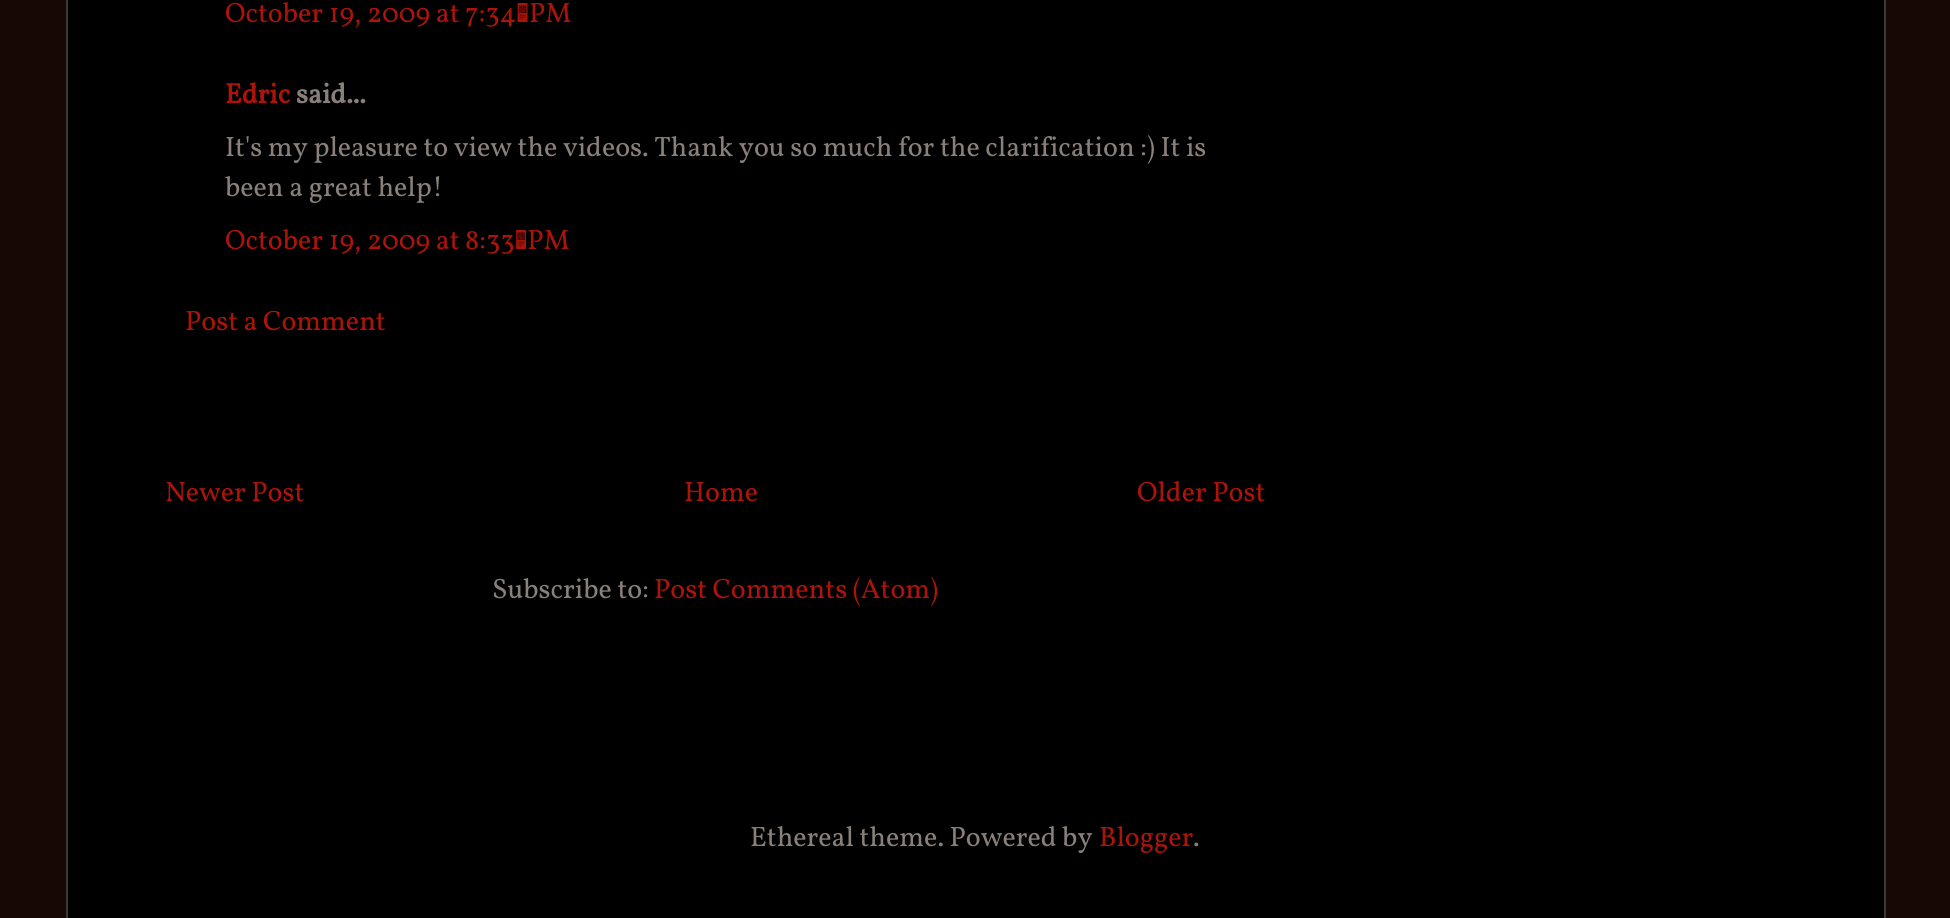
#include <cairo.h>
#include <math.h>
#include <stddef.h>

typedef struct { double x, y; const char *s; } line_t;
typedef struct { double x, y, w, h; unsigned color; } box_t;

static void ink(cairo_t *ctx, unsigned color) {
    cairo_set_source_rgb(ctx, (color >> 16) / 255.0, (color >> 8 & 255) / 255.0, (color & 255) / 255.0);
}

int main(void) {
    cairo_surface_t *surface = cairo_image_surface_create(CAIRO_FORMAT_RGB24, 1950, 918);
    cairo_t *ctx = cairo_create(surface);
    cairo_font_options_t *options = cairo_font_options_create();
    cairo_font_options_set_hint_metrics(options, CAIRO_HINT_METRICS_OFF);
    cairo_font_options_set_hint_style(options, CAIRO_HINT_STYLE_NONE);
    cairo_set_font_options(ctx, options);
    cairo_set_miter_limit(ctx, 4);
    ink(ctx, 0x170803);
    cairo_paint(ctx);
    {
        static const box_t items[] = {
            {68, 0, 1816, 918, 0x000000},
            {1884, 0, 2, 918, 0x3B3A3A},
            {66, 0, 2, 918, 0x3B3A3A},
        };
        for (size_t i = 0; i < sizeof items / sizeof *items; i++) {
            ink(ctx, items[i].color);
            cairo_rectangle(ctx, items[i].x, items[i].y, items[i].w, items[i].h);
            cairo_fill(ctx);
        }
    }
    cairo_select_font_face(ctx, "Vollkorn", CAIRO_FONT_SLANT_NORMAL, CAIRO_FONT_WEIGHT_NORMAL);
    cairo_set_font_size(ctx, 28);
    ink(ctx, 0xAC140A);
    cairo_move_to(ctx, 225, 22);
    cairo_show_text(ctx, "October 19, 2009 at 7:34 PM");
    cairo_select_font_face(ctx, "Vollkorn", CAIRO_FONT_SLANT_NORMAL, CAIRO_FONT_WEIGHT_BOLD);
    cairo_move_to(ctx, 225, 103);
    cairo_show_text(ctx, "Edric");
    ink(ctx, 0x8A807B);
    cairo_move_to(ctx, 296, 103);
    cairo_show_text(ctx, "said...");
    cairo_select_font_face(ctx, "Vollkorn", CAIRO_FONT_SLANT_NORMAL, CAIRO_FONT_WEIGHT_NORMAL);
    cairo_move_to(ctx, 225, 156);
    cairo_show_text(ctx, "It's my pleasure to view the videos. Thank you so much for the clarification :) It is");
    cairo_move_to(ctx, 225, 196);
    cairo_show_text(ctx, "been a great help!");
    ink(ctx, 0xAC140A);
    {
        static const line_t items[] = {
            {225, 249, "October 19, 2009 at 8:33 PM"},
            {185, 330, "Post a Comment"},
            {165, 501, "Newer Post"},
            {684, 501, "Home"},
            {1137, 501, "Older Post"},
        };
        for (size_t i = 0; i < sizeof items / sizeof *items; i++) {
            cairo_move_to(ctx, items[i].x, items[i].y);
            cairo_show_text(ctx, items[i].s);
        }
    }
    ink(ctx, 0x8A807B);
    cairo_move_to(ctx, 492, 598);
    cairo_show_text(ctx, "Subscribe to:");
    ink(ctx, 0xAC140A);
    cairo_move_to(ctx, 654, 598);
    cairo_show_text(ctx, "Post Comments (Atom)");
    ink(ctx, 0x8A807B);
    cairo_move_to(ctx, 750, 846);
    cairo_show_text(ctx, "Ethereal theme. Powered by");
    ink(ctx, 0xAC140A);
    cairo_move_to(ctx, 1099, 846);
    cairo_show_text(ctx, "Blogger");
    ink(ctx, 0x8A807B);
    cairo_move_to(ctx, 1193, 846);
    cairo_show_text(ctx, ".");
    cairo_surface_write_to_png(surface, "image.png");
    cairo_font_options_destroy(options);
    cairo_destroy(ctx);
    cairo_surface_destroy(surface);
    return 0;
}
